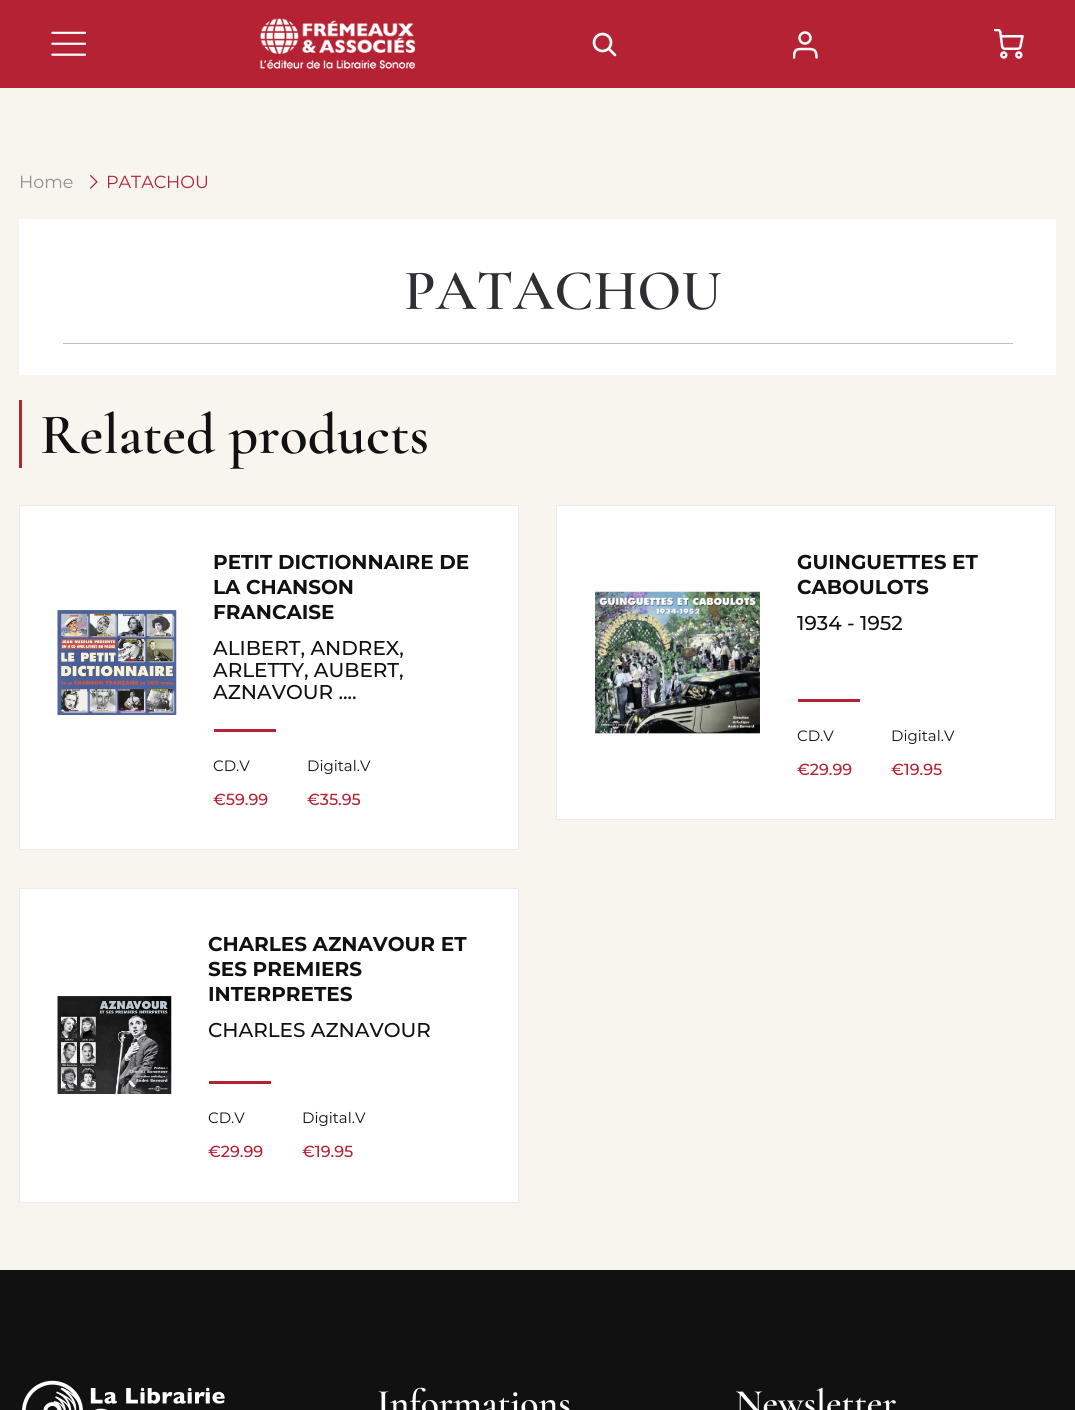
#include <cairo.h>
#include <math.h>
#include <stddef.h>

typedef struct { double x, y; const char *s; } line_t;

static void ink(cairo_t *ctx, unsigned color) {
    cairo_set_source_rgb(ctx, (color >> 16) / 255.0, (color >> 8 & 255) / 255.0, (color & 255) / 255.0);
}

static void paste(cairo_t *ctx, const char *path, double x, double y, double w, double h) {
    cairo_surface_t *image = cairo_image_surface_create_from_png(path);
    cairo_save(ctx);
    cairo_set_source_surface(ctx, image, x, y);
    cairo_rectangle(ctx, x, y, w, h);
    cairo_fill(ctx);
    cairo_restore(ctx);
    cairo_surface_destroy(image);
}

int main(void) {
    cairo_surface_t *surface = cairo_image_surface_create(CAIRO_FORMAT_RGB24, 1075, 1410);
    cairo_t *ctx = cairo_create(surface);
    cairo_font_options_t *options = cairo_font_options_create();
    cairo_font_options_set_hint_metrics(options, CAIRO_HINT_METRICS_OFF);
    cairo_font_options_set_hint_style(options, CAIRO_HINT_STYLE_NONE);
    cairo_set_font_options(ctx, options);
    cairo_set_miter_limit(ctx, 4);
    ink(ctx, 0xB42233);
    cairo_paint(ctx);
    paste(ctx, "media/1.png", 51, 31, 35, 25);
    paste(ctx, "media/2.png", 260, 18, 155, 51);
    cairo_arc(ctx, 602.5, 42.5, 8.5, 0, 2 * M_PI);
    ink(ctx, 0xFFFFFF);
    cairo_set_line_width(ctx, 2.7);
    cairo_stroke(ctx);
    cairo_new_path(ctx);
    cairo_move_to(ctx, 615, 55);
    cairo_line_to(ctx, 609, 49);
    cairo_set_line_cap(ctx, CAIRO_LINE_CAP_ROUND);
    cairo_set_line_join(ctx, CAIRO_LINE_JOIN_ROUND);
    cairo_stroke(ctx);
    cairo_arc(ctx, 805, 38, 5.5, 0, 2 * M_PI);
    cairo_set_line_width(ctx, 2.5);
    cairo_set_line_cap(ctx, CAIRO_LINE_CAP_BUTT);
    cairo_set_line_join(ctx, CAIRO_LINE_JOIN_MITER);
    cairo_stroke(ctx);
    cairo_save(ctx);
    cairo_rectangle(ctx, 793, 31, 26, 28);
    cairo_clip(ctx);
    cairo_new_path(ctx);
    cairo_move_to(ctx, 816.5, 57.5);
    cairo_curve_to(ctx, 816.5, 48.5, 813, 49, 805, 49);
    cairo_curve_to(ctx, 797, 49, 794, 48.5, 794, 57.5);
    cairo_set_line_cap(ctx, CAIRO_LINE_CAP_ROUND);
    cairo_set_line_join(ctx, CAIRO_LINE_JOIN_ROUND);
    cairo_stroke(ctx);
    cairo_restore(ctx);
    paste(ctx, "media/3.png", 994, 29, 30, 30);
    ink(ctx, 0xF8F4EE);
    cairo_rectangle(ctx, 0, 88, 1075, 1182);
    cairo_fill(ctx);
    cairo_select_font_face(ctx, "Montserrat", CAIRO_FONT_SLANT_NORMAL, CAIRO_FONT_WEIGHT_NORMAL);
    cairo_set_font_size(ctx, 17.5);
    ink(ctx, 0x919191);
    cairo_move_to(ctx, 19, 188);
    cairo_show_text(ctx, "Home");
    paste(ctx, "media/4.png", 90, 175, 8, 14);
    ink(ctx, 0xB42233);
    cairo_move_to(ctx, 106, 188);
    cairo_show_text(ctx, "PATACHOU");
    ink(ctx, 0xFFFFFF);
    cairo_rectangle(ctx, 19, 219, 1037, 156);
    cairo_fill(ctx);
    cairo_select_font_face(ctx, "Cormorant Garamond SemiBold", CAIRO_FONT_SLANT_NORMAL, CAIRO_FONT_WEIGHT_NORMAL);
    cairo_set_font_size(ctx, 57.5);
    ink(ctx, 0x2D2F32);
    cairo_move_to(ctx, 404, 309);
    cairo_show_text(ctx, "PATACHOU");
    ink(ctx, 0xBFBFBF);
    cairo_rectangle(ctx, 63, 343, 950, 1);
    cairo_fill(ctx);
    ink(ctx, 0xB42233);
    cairo_rectangle(ctx, 19, 400, 3, 68);
    cairo_fill(ctx);
    ink(ctx, 0x111111);
    cairo_move_to(ctx, 40, 453);
    cairo_show_text(ctx, "Related products");
    ink(ctx, 0xFFFFFF);
    cairo_rectangle(ctx, 19.5, 505.5, 499, 344);
    cairo_fill_preserve(ctx);
    ink(ctx, 0xEBEBEB);
    cairo_set_line_width(ctx, 1);
    cairo_stroke(ctx);
    paste(ctx, "media/5.png", 57, 610, 120, 105);
    cairo_select_font_face(ctx, "Montserrat", CAIRO_FONT_SLANT_NORMAL, CAIRO_FONT_WEIGHT_BOLD);
    cairo_set_font_size(ctx, 20);
    ink(ctx, 0x111111);
    {
        static const line_t items[] = {
            {213, 569, "PETIT DICTIONNAIRE DE"},
            {213, 594, "LA CHANSON"},
            {213, 619, "FRANCAISE"},
        };
        for (size_t i = 0; i < sizeof items / sizeof *items; i++) {
            cairo_move_to(ctx, items[i].x, items[i].y);
            cairo_show_text(ctx, items[i].s);
        }
    }
    cairo_select_font_face(ctx, "Montserrat Medium", CAIRO_FONT_SLANT_NORMAL, CAIRO_FONT_WEIGHT_NORMAL);
    {
        static const line_t items[] = {
            {213, 655, "ALIBERT, ANDREX,"},
            {213, 677, "ARLETTY, AUBERT,"},
            {213, 699, "AZNAVOUR ...."},
        };
        for (size_t i = 0; i < sizeof items / sizeof *items; i++) {
            cairo_move_to(ctx, items[i].x, items[i].y);
            cairo_show_text(ctx, items[i].s);
        }
    }
    ink(ctx, 0xB42233);
    cairo_rectangle(ctx, 214, 729, 62, 3);
    cairo_fill(ctx);
    cairo_select_font_face(ctx, "Montserrat", CAIRO_FONT_SLANT_NORMAL, CAIRO_FONT_WEIGHT_NORMAL);
    cairo_set_font_size(ctx, 15);
    ink(ctx, 0x111111);
    cairo_move_to(ctx, 213, 771);
    cairo_show_text(ctx, "CD.V");
    cairo_select_font_face(ctx, "Montserrat Medium", CAIRO_FONT_SLANT_NORMAL, CAIRO_FONT_WEIGHT_NORMAL);
    cairo_set_font_size(ctx, 16);
    ink(ctx, 0xB42233);
    cairo_move_to(ctx, 213, 805);
    cairo_show_text(ctx, "€59.99");
    cairo_select_font_face(ctx, "Montserrat", CAIRO_FONT_SLANT_NORMAL, CAIRO_FONT_WEIGHT_NORMAL);
    cairo_set_font_size(ctx, 15);
    ink(ctx, 0x111111);
    cairo_move_to(ctx, 307, 771);
    cairo_show_text(ctx, "Digital.V");
    cairo_select_font_face(ctx, "Montserrat Medium", CAIRO_FONT_SLANT_NORMAL, CAIRO_FONT_WEIGHT_NORMAL);
    cairo_set_font_size(ctx, 16);
    ink(ctx, 0xB42233);
    cairo_move_to(ctx, 307, 805);
    cairo_show_text(ctx, "€35.95");
    ink(ctx, 0xFFFFFF);
    cairo_rectangle(ctx, 556.5, 505.5, 499, 314);
    cairo_fill_preserve(ctx);
    ink(ctx, 0xEBEBEB);
    cairo_stroke(ctx);
    paste(ctx, "media/6.png", 595, 590, 165, 144);
    cairo_select_font_face(ctx, "Montserrat", CAIRO_FONT_SLANT_NORMAL, CAIRO_FONT_WEIGHT_BOLD);
    cairo_set_font_size(ctx, 20);
    ink(ctx, 0x111111);
    cairo_move_to(ctx, 797, 569);
    cairo_show_text(ctx, "GUINGUETTES ET");
    cairo_move_to(ctx, 797, 594);
    cairo_show_text(ctx, "CABOULOTS");
    cairo_select_font_face(ctx, "Montserrat Medium", CAIRO_FONT_SLANT_NORMAL, CAIRO_FONT_WEIGHT_NORMAL);
    cairo_move_to(ctx, 797, 630);
    cairo_show_text(ctx, "1934 - 1952");
    ink(ctx, 0xB42233);
    cairo_rectangle(ctx, 798, 699, 62, 3);
    cairo_fill(ctx);
    cairo_select_font_face(ctx, "Montserrat", CAIRO_FONT_SLANT_NORMAL, CAIRO_FONT_WEIGHT_NORMAL);
    cairo_set_font_size(ctx, 15);
    ink(ctx, 0x111111);
    cairo_move_to(ctx, 797, 741);
    cairo_show_text(ctx, "CD.V");
    cairo_select_font_face(ctx, "Montserrat Medium", CAIRO_FONT_SLANT_NORMAL, CAIRO_FONT_WEIGHT_NORMAL);
    cairo_set_font_size(ctx, 16);
    ink(ctx, 0xB42233);
    cairo_move_to(ctx, 797, 775);
    cairo_show_text(ctx, "€29.99");
    cairo_select_font_face(ctx, "Montserrat", CAIRO_FONT_SLANT_NORMAL, CAIRO_FONT_WEIGHT_NORMAL);
    cairo_set_font_size(ctx, 15);
    ink(ctx, 0x111111);
    cairo_move_to(ctx, 891, 741);
    cairo_show_text(ctx, "Digital.V");
    cairo_select_font_face(ctx, "Montserrat Medium", CAIRO_FONT_SLANT_NORMAL, CAIRO_FONT_WEIGHT_NORMAL);
    cairo_set_font_size(ctx, 16);
    ink(ctx, 0xB42233);
    cairo_move_to(ctx, 891, 775);
    cairo_show_text(ctx, "€19.95");
    ink(ctx, 0xFFFFFF);
    cairo_rectangle(ctx, 19.5, 888.5, 499, 314);
    cairo_fill_preserve(ctx);
    ink(ctx, 0xEBEBEB);
    cairo_stroke(ctx);
    paste(ctx, "media/7.png", 57, 996, 115, 98);
    cairo_select_font_face(ctx, "Montserrat", CAIRO_FONT_SLANT_NORMAL, CAIRO_FONT_WEIGHT_BOLD);
    cairo_set_font_size(ctx, 20);
    ink(ctx, 0x111111);
    {
        static const line_t items[] = {
            {208, 951, "CHARLES AZNAVOUR ET"},
            {208, 976, "SES PREMIERS"},
            {208, 1001, "INTERPRETES"},
        };
        for (size_t i = 0; i < sizeof items / sizeof *items; i++) {
            cairo_move_to(ctx, items[i].x, items[i].y);
            cairo_show_text(ctx, items[i].s);
        }
    }
    cairo_select_font_face(ctx, "Montserrat Medium", CAIRO_FONT_SLANT_NORMAL, CAIRO_FONT_WEIGHT_NORMAL);
    cairo_move_to(ctx, 208, 1037);
    cairo_show_text(ctx, "CHARLES AZNAVOUR");
    ink(ctx, 0xB42233);
    cairo_rectangle(ctx, 209, 1081, 62, 3);
    cairo_fill(ctx);
    cairo_select_font_face(ctx, "Montserrat", CAIRO_FONT_SLANT_NORMAL, CAIRO_FONT_WEIGHT_NORMAL);
    cairo_set_font_size(ctx, 15);
    ink(ctx, 0x111111);
    cairo_move_to(ctx, 208, 1123);
    cairo_show_text(ctx, "CD.V");
    cairo_select_font_face(ctx, "Montserrat Medium", CAIRO_FONT_SLANT_NORMAL, CAIRO_FONT_WEIGHT_NORMAL);
    cairo_set_font_size(ctx, 16);
    ink(ctx, 0xB42233);
    cairo_move_to(ctx, 208, 1157);
    cairo_show_text(ctx, "€29.99");
    cairo_select_font_face(ctx, "Montserrat", CAIRO_FONT_SLANT_NORMAL, CAIRO_FONT_WEIGHT_NORMAL);
    cairo_set_font_size(ctx, 15);
    ink(ctx, 0x111111);
    cairo_move_to(ctx, 302, 1123);
    cairo_show_text(ctx, "Digital.V");
    cairo_select_font_face(ctx, "Montserrat Medium", CAIRO_FONT_SLANT_NORMAL, CAIRO_FONT_WEIGHT_NORMAL);
    cairo_set_font_size(ctx, 16);
    ink(ctx, 0xB42233);
    cairo_move_to(ctx, 302, 1157);
    cairo_show_text(ctx, "€19.95");
    ink(ctx, 0x111111);
    cairo_rectangle(ctx, 0, 1270, 1075, 140);
    cairo_fill(ctx);
    paste(ctx, "media/8.png", 22, 1380, 203, 30);
    cairo_select_font_face(ctx, "Cormorant Garamond SemiBold", CAIRO_FONT_SLANT_NORMAL, CAIRO_FONT_WEIGHT_NORMAL);
    cairo_set_font_size(ctx, 37.5);
    ink(ctx, 0xFFFFFF);
    cairo_move_to(ctx, 377, 1415);
    cairo_show_text(ctx, "Informations");
    cairo_move_to(ctx, 735, 1415);
    cairo_show_text(ctx, "Newsletter");
    cairo_surface_write_to_png(surface, "image.png");
    cairo_font_options_destroy(options);
    cairo_destroy(ctx);
    cairo_surface_destroy(surface);
    return 0;
}
